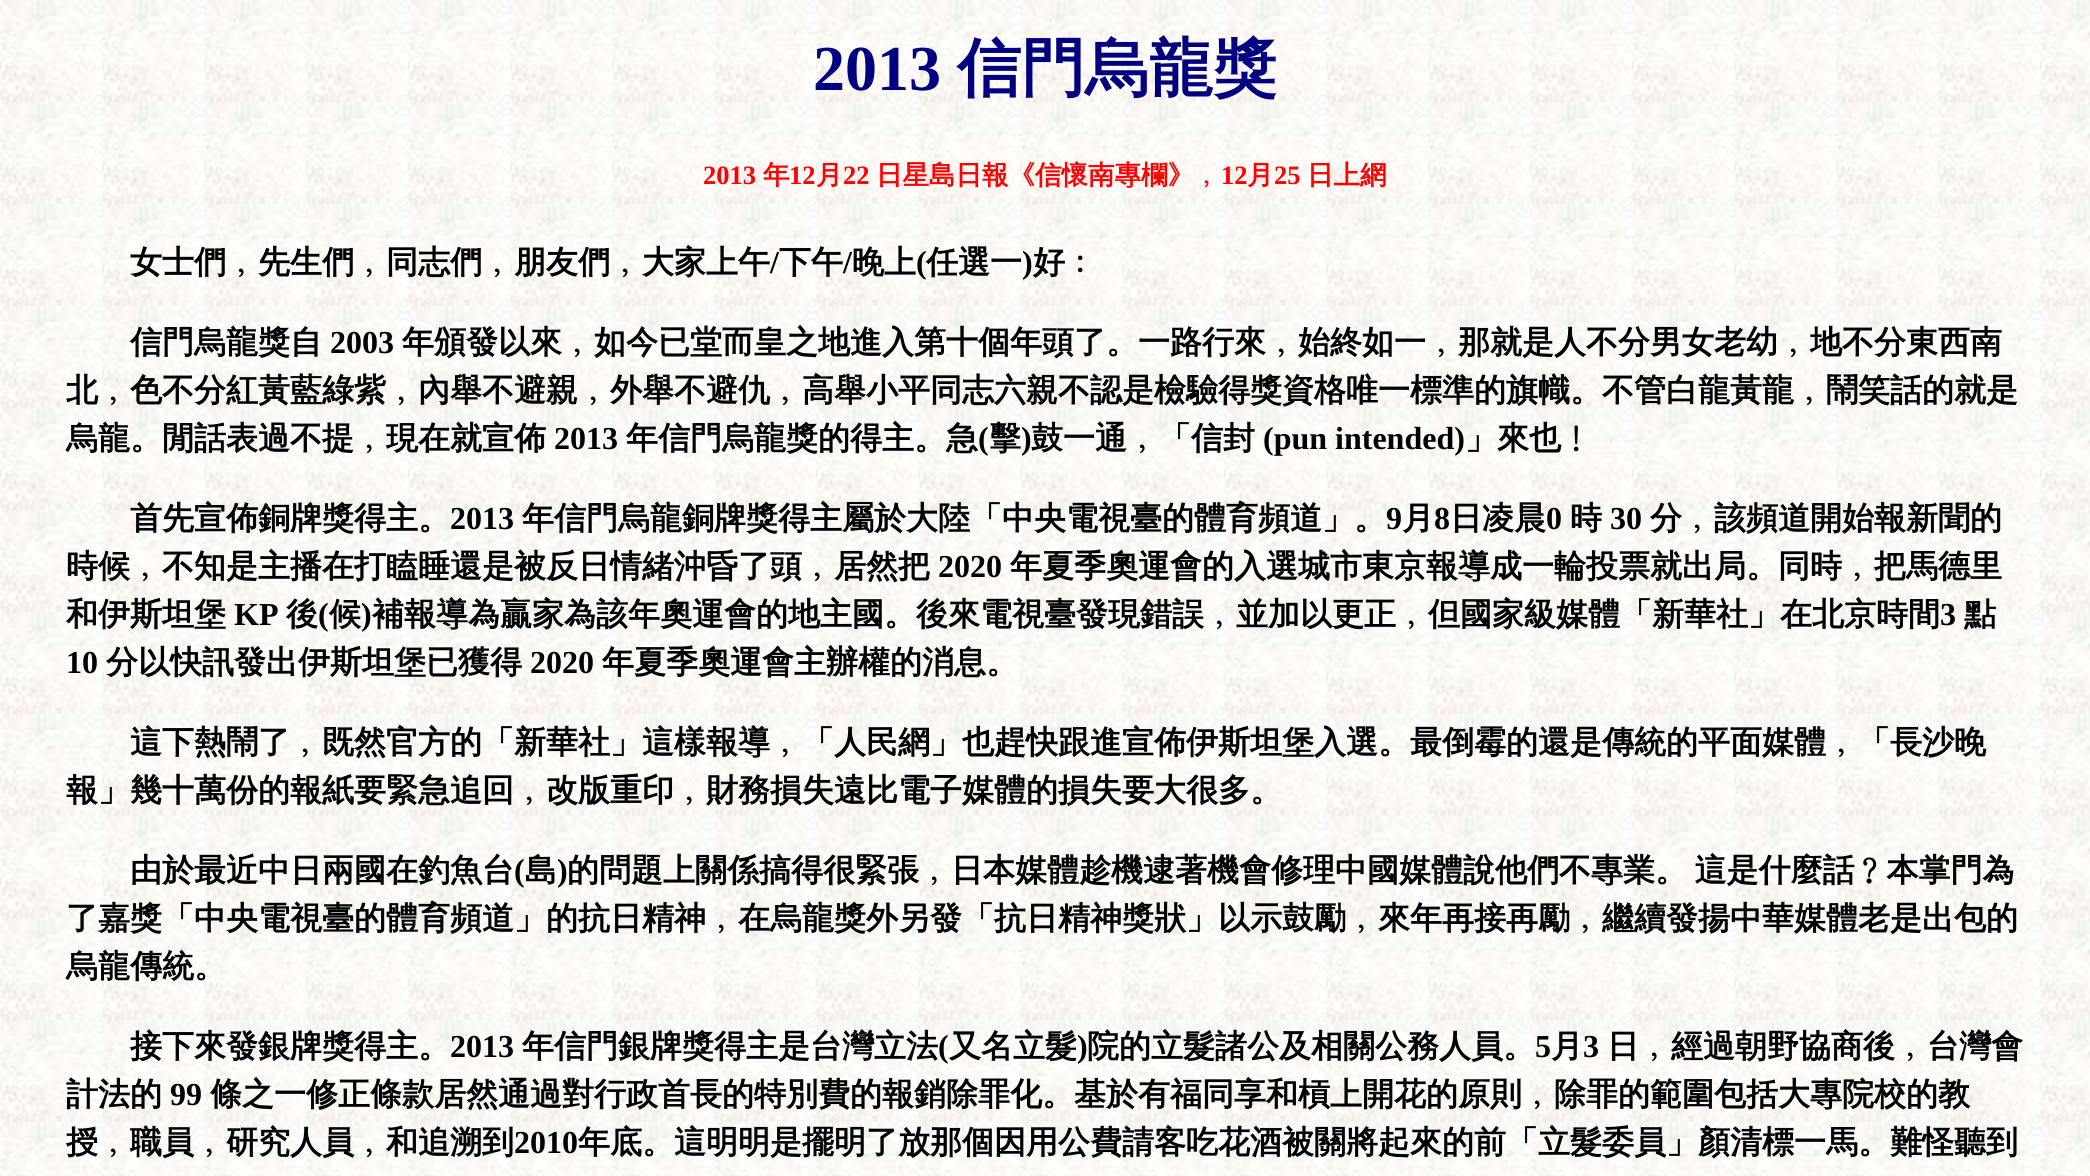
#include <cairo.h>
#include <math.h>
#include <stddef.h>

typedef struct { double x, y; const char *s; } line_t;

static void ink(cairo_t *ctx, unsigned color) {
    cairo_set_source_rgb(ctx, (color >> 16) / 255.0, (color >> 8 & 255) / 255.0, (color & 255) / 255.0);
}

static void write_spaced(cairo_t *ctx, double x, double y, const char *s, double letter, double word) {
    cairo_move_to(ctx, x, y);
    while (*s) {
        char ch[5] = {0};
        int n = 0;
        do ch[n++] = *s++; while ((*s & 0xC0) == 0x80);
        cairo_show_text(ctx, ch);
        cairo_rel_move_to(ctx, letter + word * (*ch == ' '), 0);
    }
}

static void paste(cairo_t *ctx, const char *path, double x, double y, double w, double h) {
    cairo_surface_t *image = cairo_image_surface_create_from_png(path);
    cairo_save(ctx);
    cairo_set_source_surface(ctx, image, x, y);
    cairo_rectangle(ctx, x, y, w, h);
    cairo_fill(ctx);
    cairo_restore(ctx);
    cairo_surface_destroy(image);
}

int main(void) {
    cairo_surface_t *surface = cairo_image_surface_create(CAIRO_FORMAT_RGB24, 2090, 1176);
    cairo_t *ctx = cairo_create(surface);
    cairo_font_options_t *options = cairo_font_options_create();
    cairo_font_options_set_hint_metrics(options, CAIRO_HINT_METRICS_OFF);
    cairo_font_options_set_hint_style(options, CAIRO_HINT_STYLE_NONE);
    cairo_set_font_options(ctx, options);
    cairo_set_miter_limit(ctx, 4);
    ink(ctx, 0xFFFFFF);
    cairo_paint(ctx);
    paste(ctx, "media/1.png", 0, 0, 2090, 1176);
    cairo_select_font_face(ctx, "Liberation Serif", CAIRO_FONT_SLANT_NORMAL, CAIRO_FONT_WEIGHT_BOLD);
    cairo_set_font_size(ctx, 64);
    ink(ctx, 0x000080);
    cairo_move_to(ctx, 813, 90);
    cairo_show_text(ctx, "2013");
    cairo_select_font_face(ctx, "WenQuanYi Zen Hei", CAIRO_FONT_SLANT_NORMAL, CAIRO_FONT_WEIGHT_BOLD);
    cairo_move_to(ctx, 957, 90);
    cairo_show_text(ctx, "信門烏龍獎");
    cairo_select_font_face(ctx, "Liberation Serif", CAIRO_FONT_SLANT_NORMAL, CAIRO_FONT_WEIGHT_BOLD);
    cairo_set_font_size(ctx, 26.5);
    ink(ctx, 0xFF0000);
    cairo_move_to(ctx, 703, 184);
    cairo_show_text(ctx, "2013");
    cairo_select_font_face(ctx, "WenQuanYi Zen Hei", CAIRO_FONT_SLANT_NORMAL, CAIRO_FONT_WEIGHT_BOLD);
    cairo_move_to(ctx, 763, 184);
    cairo_show_text(ctx, "年");
    cairo_select_font_face(ctx, "Liberation Serif", CAIRO_FONT_SLANT_NORMAL, CAIRO_FONT_WEIGHT_BOLD);
    cairo_move_to(ctx, 789, 184);
    cairo_show_text(ctx, "12");
    cairo_select_font_face(ctx, "WenQuanYi Zen Hei", CAIRO_FONT_SLANT_NORMAL, CAIRO_FONT_WEIGHT_BOLD);
    cairo_move_to(ctx, 816, 184);
    cairo_show_text(ctx, "月");
    cairo_select_font_face(ctx, "Liberation Serif", CAIRO_FONT_SLANT_NORMAL, CAIRO_FONT_WEIGHT_BOLD);
    cairo_move_to(ctx, 843, 184);
    cairo_show_text(ctx, "22");
    cairo_select_font_face(ctx, "WenQuanYi Zen Hei", CAIRO_FONT_SLANT_NORMAL, CAIRO_FONT_WEIGHT_BOLD);
    cairo_move_to(ctx, 876, 184);
    cairo_show_text(ctx, "日星島日報《信懷南專欄》﹐");
    cairo_select_font_face(ctx, "Liberation Serif", CAIRO_FONT_SLANT_NORMAL, CAIRO_FONT_WEIGHT_BOLD);
    cairo_move_to(ctx, 1221, 184);
    cairo_show_text(ctx, "12");
    cairo_select_font_face(ctx, "WenQuanYi Zen Hei", CAIRO_FONT_SLANT_NORMAL, CAIRO_FONT_WEIGHT_BOLD);
    cairo_move_to(ctx, 1247, 184);
    cairo_show_text(ctx, "月");
    cairo_select_font_face(ctx, "Liberation Serif", CAIRO_FONT_SLANT_NORMAL, CAIRO_FONT_WEIGHT_BOLD);
    cairo_move_to(ctx, 1274, 184);
    cairo_show_text(ctx, "25");
    cairo_select_font_face(ctx, "WenQuanYi Zen Hei", CAIRO_FONT_SLANT_NORMAL, CAIRO_FONT_WEIGHT_BOLD);
    cairo_move_to(ctx, 1307, 184);
    cairo_show_text(ctx, "日上網");
    cairo_set_font_size(ctx, 32);
    ink(ctx, 0x000000);
    cairo_move_to(ctx, 130, 273);
    cairo_show_text(ctx, "女士們﹐先生們﹐同志們﹐朋友們﹐大家上午");
    cairo_select_font_face(ctx, "Liberation Serif", CAIRO_FONT_SLANT_NORMAL, CAIRO_FONT_WEIGHT_BOLD);
    cairo_move_to(ctx, 770, 273);
    cairo_show_text(ctx, "/");
    cairo_select_font_face(ctx, "WenQuanYi Zen Hei", CAIRO_FONT_SLANT_NORMAL, CAIRO_FONT_WEIGHT_BOLD);
    cairo_move_to(ctx, 779, 273);
    cairo_show_text(ctx, "下午");
    cairo_select_font_face(ctx, "Liberation Serif", CAIRO_FONT_SLANT_NORMAL, CAIRO_FONT_WEIGHT_BOLD);
    cairo_move_to(ctx, 843, 273);
    cairo_show_text(ctx, "/");
    cairo_select_font_face(ctx, "WenQuanYi Zen Hei", CAIRO_FONT_SLANT_NORMAL, CAIRO_FONT_WEIGHT_BOLD);
    cairo_move_to(ctx, 852, 273);
    cairo_show_text(ctx, "晚上");
    cairo_select_font_face(ctx, "Liberation Serif", CAIRO_FONT_SLANT_NORMAL, CAIRO_FONT_WEIGHT_BOLD);
    cairo_move_to(ctx, 916, 273);
    cairo_show_text(ctx, "(");
    cairo_select_font_face(ctx, "WenQuanYi Zen Hei", CAIRO_FONT_SLANT_NORMAL, CAIRO_FONT_WEIGHT_BOLD);
    cairo_move_to(ctx, 926, 273);
    cairo_show_text(ctx, "任選一");
    cairo_select_font_face(ctx, "Liberation Serif", CAIRO_FONT_SLANT_NORMAL, CAIRO_FONT_WEIGHT_BOLD);
    cairo_move_to(ctx, 1022, 273);
    cairo_show_text(ctx, ")");
    cairo_select_font_face(ctx, "WenQuanYi Zen Hei", CAIRO_FONT_SLANT_NORMAL, CAIRO_FONT_WEIGHT_BOLD);
    cairo_move_to(ctx, 1033, 273);
    cairo_show_text(ctx, "好﹕");
    cairo_move_to(ctx, 130, 353);
    cairo_show_text(ctx, "信門烏龍獎自");
    cairo_select_font_face(ctx, "Liberation Serif", CAIRO_FONT_SLANT_NORMAL, CAIRO_FONT_WEIGHT_BOLD);
    cairo_move_to(ctx, 330, 353);
    cairo_show_text(ctx, "2003");
    cairo_select_font_face(ctx, "WenQuanYi Zen Hei", CAIRO_FONT_SLANT_NORMAL, CAIRO_FONT_WEIGHT_BOLD);
    {
        static const line_t items[] = {
            {402, 353, "年頒發以來﹐如今已堂而皇之地進入第十個年頭了。一路行來﹐始終如一﹐那就是人不分男女老幼﹐地不分東西南"},
            {66, 401, "北﹐色不分紅黃藍綠紫﹐內舉不避親﹐外舉不避仇﹐高舉小平同志六親不認是檢驗得獎資格唯一標準的旗幟。不管白龍黃龍﹐鬧笑話的就是"},
            {66, 449, "烏龍。閒話表過不提﹐現在就宣佈"},
        };
        for (size_t i = 0; i < sizeof items / sizeof *items; i++) {
            cairo_move_to(ctx, items[i].x, items[i].y);
            cairo_show_text(ctx, items[i].s);
        }
    }
    cairo_select_font_face(ctx, "Liberation Serif", CAIRO_FONT_SLANT_NORMAL, CAIRO_FONT_WEIGHT_BOLD);
    cairo_move_to(ctx, 554, 449);
    cairo_show_text(ctx, "2013");
    cairo_select_font_face(ctx, "WenQuanYi Zen Hei", CAIRO_FONT_SLANT_NORMAL, CAIRO_FONT_WEIGHT_BOLD);
    cairo_move_to(ctx, 626, 449);
    cairo_show_text(ctx, "年信門烏龍獎的得主。急");
    cairo_select_font_face(ctx, "Liberation Serif", CAIRO_FONT_SLANT_NORMAL, CAIRO_FONT_WEIGHT_BOLD);
    cairo_move_to(ctx, 978, 449);
    cairo_show_text(ctx, "(");
    cairo_select_font_face(ctx, "WenQuanYi Zen Hei", CAIRO_FONT_SLANT_NORMAL, CAIRO_FONT_WEIGHT_BOLD);
    cairo_move_to(ctx, 989, 449);
    cairo_show_text(ctx, "擊");
    cairo_select_font_face(ctx, "Liberation Serif", CAIRO_FONT_SLANT_NORMAL, CAIRO_FONT_WEIGHT_BOLD);
    cairo_move_to(ctx, 1021, 449);
    cairo_show_text(ctx, ")");
    cairo_select_font_face(ctx, "WenQuanYi Zen Hei", CAIRO_FONT_SLANT_NORMAL, CAIRO_FONT_WEIGHT_BOLD);
    cairo_move_to(ctx, 1031, 449);
    cairo_show_text(ctx, "鼓一通﹐「信封");
    cairo_select_font_face(ctx, "Liberation Serif", CAIRO_FONT_SLANT_NORMAL, CAIRO_FONT_WEIGHT_BOLD);
    cairo_move_to(ctx, 1263, 449);
    cairo_show_text(ctx, "(pun intended)");
    cairo_select_font_face(ctx, "WenQuanYi Zen Hei", CAIRO_FONT_SLANT_NORMAL, CAIRO_FONT_WEIGHT_BOLD);
    cairo_move_to(ctx, 1465, 449);
    cairo_show_text(ctx, "」來也﹗");
    cairo_move_to(ctx, 130, 529);
    cairo_show_text(ctx, "首先宣佈銅牌獎得主。");
    cairo_select_font_face(ctx, "Liberation Serif", CAIRO_FONT_SLANT_NORMAL, CAIRO_FONT_WEIGHT_BOLD);
    cairo_move_to(ctx, 450, 529);
    cairo_show_text(ctx, "2013");
    cairo_select_font_face(ctx, "WenQuanYi Zen Hei", CAIRO_FONT_SLANT_NORMAL, CAIRO_FONT_WEIGHT_BOLD);
    cairo_move_to(ctx, 522, 529);
    cairo_show_text(ctx, "年信門烏龍銅牌獎得主屬於大陸「中央電視臺的體育頻道」。");
    cairo_select_font_face(ctx, "Liberation Serif", CAIRO_FONT_SLANT_NORMAL, CAIRO_FONT_WEIGHT_BOLD);
    cairo_move_to(ctx, 1386, 529);
    cairo_show_text(ctx, "9");
    cairo_select_font_face(ctx, "WenQuanYi Zen Hei", CAIRO_FONT_SLANT_NORMAL, CAIRO_FONT_WEIGHT_BOLD);
    cairo_move_to(ctx, 1402, 529);
    cairo_show_text(ctx, "月");
    cairo_select_font_face(ctx, "Liberation Serif", CAIRO_FONT_SLANT_NORMAL, CAIRO_FONT_WEIGHT_BOLD);
    cairo_move_to(ctx, 1434, 529);
    cairo_show_text(ctx, "8");
    cairo_select_font_face(ctx, "WenQuanYi Zen Hei", CAIRO_FONT_SLANT_NORMAL, CAIRO_FONT_WEIGHT_BOLD);
    cairo_move_to(ctx, 1450, 529);
    cairo_show_text(ctx, "日凌晨");
    cairo_select_font_face(ctx, "Liberation Serif", CAIRO_FONT_SLANT_NORMAL, CAIRO_FONT_WEIGHT_BOLD);
    cairo_move_to(ctx, 1546, 529);
    cairo_show_text(ctx, "0");
    cairo_select_font_face(ctx, "WenQuanYi Zen Hei", CAIRO_FONT_SLANT_NORMAL, CAIRO_FONT_WEIGHT_BOLD);
    cairo_move_to(ctx, 1570, 529);
    cairo_show_text(ctx, "時");
    cairo_select_font_face(ctx, "Liberation Serif", CAIRO_FONT_SLANT_NORMAL, CAIRO_FONT_WEIGHT_BOLD);
    cairo_move_to(ctx, 1610, 529);
    cairo_show_text(ctx, "30");
    cairo_select_font_face(ctx, "WenQuanYi Zen Hei", CAIRO_FONT_SLANT_NORMAL, CAIRO_FONT_WEIGHT_BOLD);
    cairo_move_to(ctx, 1650, 529);
    cairo_show_text(ctx, "分﹐該頻道開始報新聞的");
    cairo_move_to(ctx, 66, 577);
    cairo_show_text(ctx, "時候﹐不知是主播在打瞌睡還是被反日情緒沖昏了頭﹐居然把");
    cairo_select_font_face(ctx, "Liberation Serif", CAIRO_FONT_SLANT_NORMAL, CAIRO_FONT_WEIGHT_BOLD);
    cairo_move_to(ctx, 938, 577);
    cairo_show_text(ctx, "2020");
    cairo_select_font_face(ctx, "WenQuanYi Zen Hei", CAIRO_FONT_SLANT_NORMAL, CAIRO_FONT_WEIGHT_BOLD);
    cairo_move_to(ctx, 1010, 577);
    cairo_show_text(ctx, "年夏季奧運會的入選城市東京報導成一輪投票就出局。同時﹐把馬德里");
    cairo_move_to(ctx, 66, 625);
    cairo_show_text(ctx, "和伊斯坦堡");
    cairo_select_font_face(ctx, "Liberation Serif", CAIRO_FONT_SLANT_NORMAL, CAIRO_FONT_WEIGHT_BOLD);
    cairo_move_to(ctx, 234, 625);
    cairo_show_text(ctx, "KP");
    cairo_select_font_face(ctx, "WenQuanYi Zen Hei", CAIRO_FONT_SLANT_NORMAL, CAIRO_FONT_WEIGHT_BOLD);
    cairo_move_to(ctx, 286, 625);
    cairo_show_text(ctx, "後");
    cairo_select_font_face(ctx, "Liberation Serif", CAIRO_FONT_SLANT_NORMAL, CAIRO_FONT_WEIGHT_BOLD);
    cairo_move_to(ctx, 318, 625);
    cairo_show_text(ctx, "(");
    cairo_select_font_face(ctx, "WenQuanYi Zen Hei", CAIRO_FONT_SLANT_NORMAL, CAIRO_FONT_WEIGHT_BOLD);
    cairo_move_to(ctx, 329, 625);
    cairo_show_text(ctx, "候");
    cairo_select_font_face(ctx, "Liberation Serif", CAIRO_FONT_SLANT_NORMAL, CAIRO_FONT_WEIGHT_BOLD);
    cairo_move_to(ctx, 361, 625);
    cairo_show_text(ctx, ")");
    cairo_select_font_face(ctx, "WenQuanYi Zen Hei", CAIRO_FONT_SLANT_NORMAL, CAIRO_FONT_WEIGHT_BOLD);
    cairo_move_to(ctx, 372, 625);
    cairo_show_text(ctx, "補報導為贏家為該年奧運會的地主國。後來電視臺發現錯誤﹐並加以更正﹐但國家級媒體「新華社」在北京時間");
    cairo_select_font_face(ctx, "Liberation Serif", CAIRO_FONT_SLANT_NORMAL, CAIRO_FONT_WEIGHT_BOLD);
    cairo_move_to(ctx, 1940, 625);
    cairo_show_text(ctx, "3");
    cairo_select_font_face(ctx, "WenQuanYi Zen Hei", CAIRO_FONT_SLANT_NORMAL, CAIRO_FONT_WEIGHT_BOLD);
    cairo_move_to(ctx, 1964, 625);
    cairo_show_text(ctx, "點");
    cairo_select_font_face(ctx, "Liberation Serif", CAIRO_FONT_SLANT_NORMAL, CAIRO_FONT_WEIGHT_BOLD);
    cairo_move_to(ctx, 66, 673);
    cairo_show_text(ctx, "10");
    cairo_select_font_face(ctx, "WenQuanYi Zen Hei", CAIRO_FONT_SLANT_NORMAL, CAIRO_FONT_WEIGHT_BOLD);
    cairo_move_to(ctx, 106, 673);
    cairo_show_text(ctx, "分以快訊發出伊斯坦堡已獲得");
    cairo_select_font_face(ctx, "Liberation Serif", CAIRO_FONT_SLANT_NORMAL, CAIRO_FONT_WEIGHT_BOLD);
    cairo_move_to(ctx, 530, 673);
    cairo_show_text(ctx, "2020");
    cairo_select_font_face(ctx, "WenQuanYi Zen Hei", CAIRO_FONT_SLANT_NORMAL, CAIRO_FONT_WEIGHT_BOLD);
    {
        static const line_t items[] = {
            {602, 673, "年夏季奧運會主辦權的消息。"},
            {130, 753, "這下熱鬧了﹐既然官方的「新華社」這樣報導﹐「人民網」也趕快跟進宣佈伊斯坦堡入選。最倒霉的還是傳統的平面媒體﹐「長沙晚"},
            {66, 801, "報」幾十萬份的報紙要緊急追回﹐改版重印﹐財務損失遠比電子媒體的損失要大很多。"},
            {130, 881, "由於最近中日兩國在釣魚台"},
        };
        for (size_t i = 0; i < sizeof items / sizeof *items; i++) {
            cairo_move_to(ctx, items[i].x, items[i].y);
            cairo_show_text(ctx, items[i].s);
        }
    }
    cairo_select_font_face(ctx, "Liberation Serif", CAIRO_FONT_SLANT_NORMAL, CAIRO_FONT_WEIGHT_BOLD);
    cairo_move_to(ctx, 514, 881);
    cairo_show_text(ctx, "(");
    cairo_select_font_face(ctx, "WenQuanYi Zen Hei", CAIRO_FONT_SLANT_NORMAL, CAIRO_FONT_WEIGHT_BOLD);
    cairo_move_to(ctx, 525, 881);
    cairo_show_text(ctx, "島");
    cairo_select_font_face(ctx, "Liberation Serif", CAIRO_FONT_SLANT_NORMAL, CAIRO_FONT_WEIGHT_BOLD);
    cairo_move_to(ctx, 557, 881);
    cairo_show_text(ctx, ")");
    cairo_select_font_face(ctx, "WenQuanYi Zen Hei", CAIRO_FONT_SLANT_NORMAL, CAIRO_FONT_WEIGHT_BOLD);
    write_spaced(ctx, 567, 881, "的問題上關係搞得很緊張﹐日本媒體趁機逮著機會修理中國媒體說他們不專業。 這是什麼話﹖本掌門為", 0, -2);
    {
        static const line_t items[] = {
            {66, 929, "了嘉獎「中央電視臺的體育頻道」的抗日精神﹐在烏龍獎外另發「抗日精神獎狀」以示鼓勵﹐來年再接再勵﹐繼續發揚中華媒體老是出包的"},
            {66, 977, "烏龍傳統。"},
            {130, 1057, "接下來發銀牌獎得主。"},
        };
        for (size_t i = 0; i < sizeof items / sizeof *items; i++) {
            cairo_move_to(ctx, items[i].x, items[i].y);
            cairo_show_text(ctx, items[i].s);
        }
    }
    cairo_select_font_face(ctx, "Liberation Serif", CAIRO_FONT_SLANT_NORMAL, CAIRO_FONT_WEIGHT_BOLD);
    cairo_move_to(ctx, 450, 1057);
    cairo_show_text(ctx, "2013");
    cairo_select_font_face(ctx, "WenQuanYi Zen Hei", CAIRO_FONT_SLANT_NORMAL, CAIRO_FONT_WEIGHT_BOLD);
    cairo_move_to(ctx, 522, 1057);
    cairo_show_text(ctx, "年信門銀牌獎得主是台灣立法");
    cairo_select_font_face(ctx, "Liberation Serif", CAIRO_FONT_SLANT_NORMAL, CAIRO_FONT_WEIGHT_BOLD);
    cairo_move_to(ctx, 938, 1057);
    cairo_show_text(ctx, "(");
    cairo_select_font_face(ctx, "WenQuanYi Zen Hei", CAIRO_FONT_SLANT_NORMAL, CAIRO_FONT_WEIGHT_BOLD);
    cairo_move_to(ctx, 949, 1057);
    cairo_show_text(ctx, "又名立髮");
    cairo_select_font_face(ctx, "Liberation Serif", CAIRO_FONT_SLANT_NORMAL, CAIRO_FONT_WEIGHT_BOLD);
    cairo_move_to(ctx, 1077, 1057);
    cairo_show_text(ctx, ")");
    cairo_select_font_face(ctx, "WenQuanYi Zen Hei", CAIRO_FONT_SLANT_NORMAL, CAIRO_FONT_WEIGHT_BOLD);
    cairo_move_to(ctx, 1087, 1057);
    cairo_show_text(ctx, "院的立髮諸公及相關公務人員。");
    cairo_select_font_face(ctx, "Liberation Serif", CAIRO_FONT_SLANT_NORMAL, CAIRO_FONT_WEIGHT_BOLD);
    cairo_move_to(ctx, 1535, 1057);
    cairo_show_text(ctx, "5");
    cairo_select_font_face(ctx, "WenQuanYi Zen Hei", CAIRO_FONT_SLANT_NORMAL, CAIRO_FONT_WEIGHT_BOLD);
    cairo_move_to(ctx, 1551, 1057);
    cairo_show_text(ctx, "月");
    cairo_select_font_face(ctx, "Liberation Serif", CAIRO_FONT_SLANT_NORMAL, CAIRO_FONT_WEIGHT_BOLD);
    cairo_move_to(ctx, 1583, 1057);
    cairo_show_text(ctx, "3");
    cairo_select_font_face(ctx, "WenQuanYi Zen Hei", CAIRO_FONT_SLANT_NORMAL, CAIRO_FONT_WEIGHT_BOLD);
    cairo_move_to(ctx, 1607, 1057);
    cairo_show_text(ctx, "日﹐經過朝野協商後﹐台灣會");
    cairo_move_to(ctx, 66, 1105);
    cairo_show_text(ctx, "計法的");
    cairo_select_font_face(ctx, "Liberation Serif", CAIRO_FONT_SLANT_NORMAL, CAIRO_FONT_WEIGHT_BOLD);
    cairo_move_to(ctx, 170, 1105);
    cairo_show_text(ctx, "99");
    cairo_select_font_face(ctx, "WenQuanYi Zen Hei", CAIRO_FONT_SLANT_NORMAL, CAIRO_FONT_WEIGHT_BOLD);
    cairo_move_to(ctx, 210, 1105);
    cairo_show_text(ctx, "條之一修正條款居然通過對行政首長的特別費的報銷除罪化。基於有福同享和槓上開花的原則﹐除罪的範圍包括大專院校的教");
    cairo_move_to(ctx, 66, 1153);
    cairo_show_text(ctx, "授﹐職員﹐研究人員﹐和追溯到");
    cairo_select_font_face(ctx, "Liberation Serif", CAIRO_FONT_SLANT_NORMAL, CAIRO_FONT_WEIGHT_BOLD);
    cairo_move_to(ctx, 514, 1153);
    cairo_show_text(ctx, "2010");
    cairo_select_font_face(ctx, "WenQuanYi Zen Hei", CAIRO_FONT_SLANT_NORMAL, CAIRO_FONT_WEIGHT_BOLD);
    cairo_move_to(ctx, 578, 1153);
    cairo_show_text(ctx, "年底。這明明是擺明了放那個因用公費請客吃花酒被關將起來的前「立髮委員」顏清標一馬。難怪聽到");
    cairo_surface_write_to_png(surface, "image.png");
    cairo_font_options_destroy(options);
    cairo_destroy(ctx);
    cairo_surface_destroy(surface);
    return 0;
}
